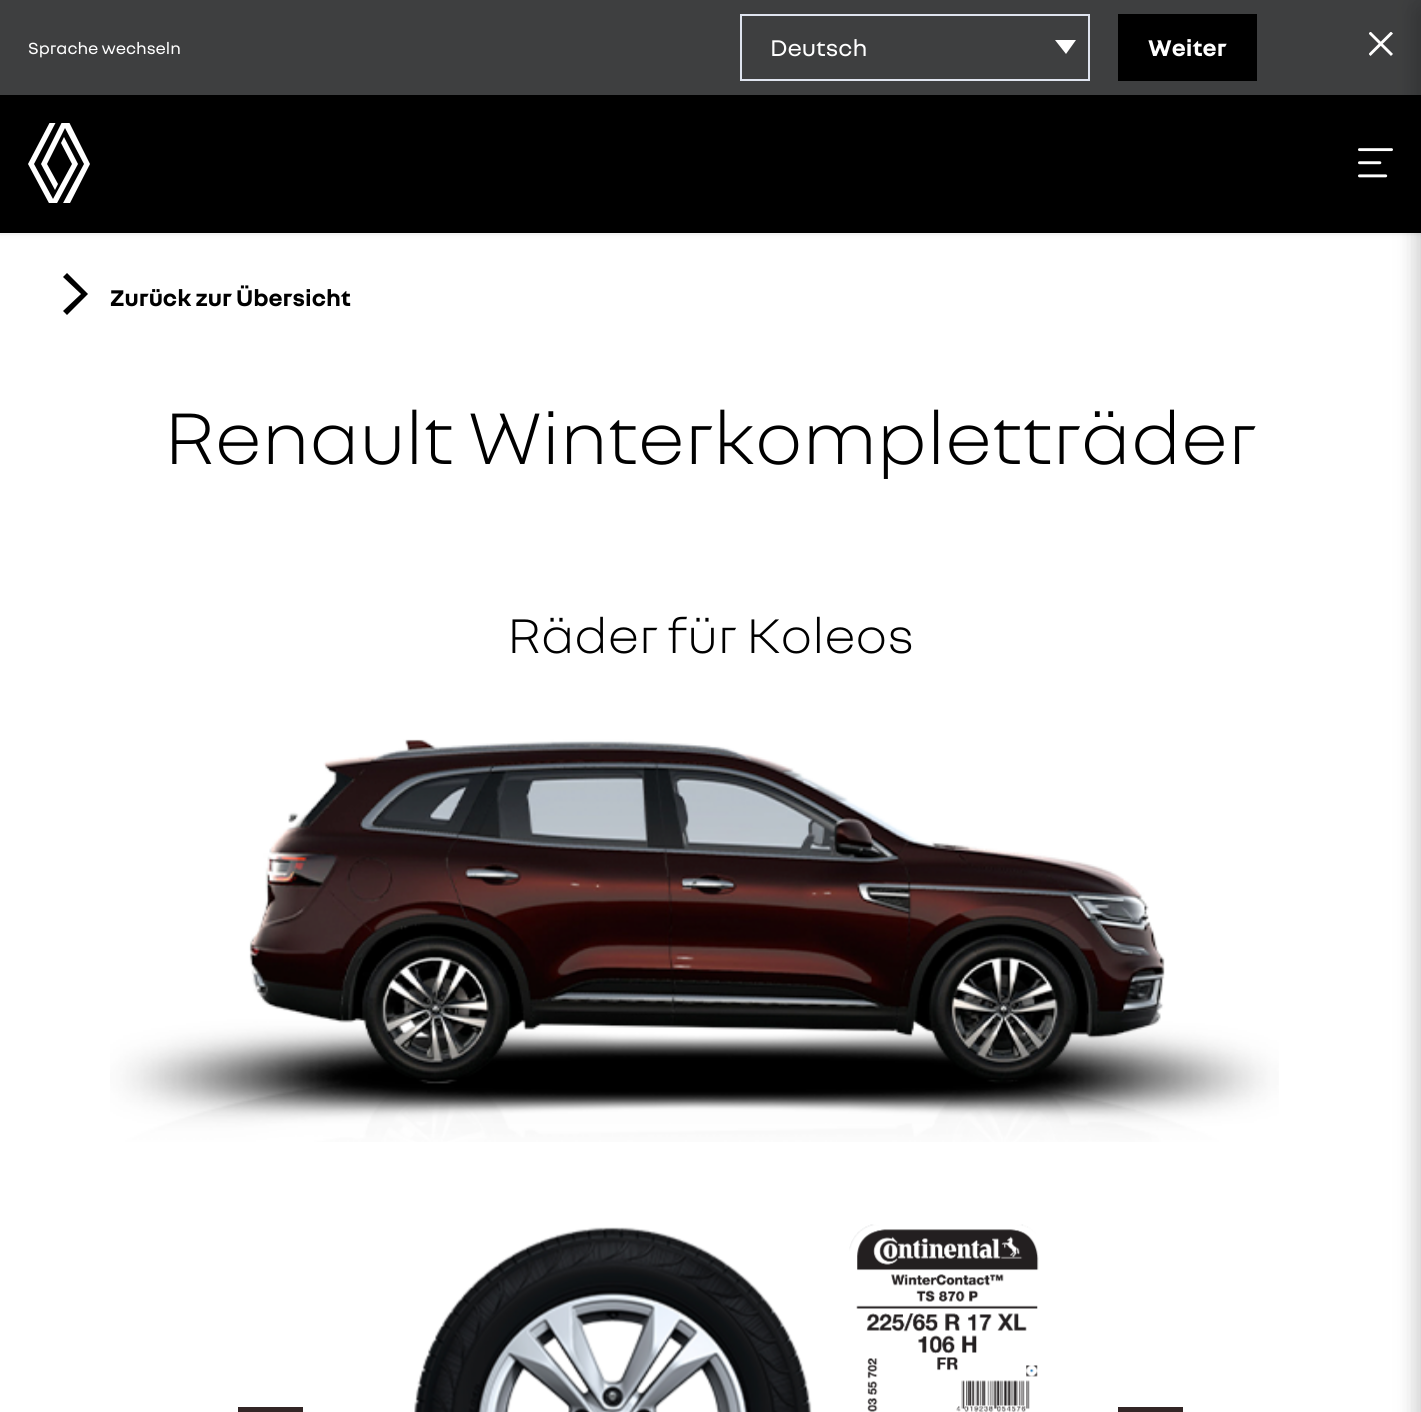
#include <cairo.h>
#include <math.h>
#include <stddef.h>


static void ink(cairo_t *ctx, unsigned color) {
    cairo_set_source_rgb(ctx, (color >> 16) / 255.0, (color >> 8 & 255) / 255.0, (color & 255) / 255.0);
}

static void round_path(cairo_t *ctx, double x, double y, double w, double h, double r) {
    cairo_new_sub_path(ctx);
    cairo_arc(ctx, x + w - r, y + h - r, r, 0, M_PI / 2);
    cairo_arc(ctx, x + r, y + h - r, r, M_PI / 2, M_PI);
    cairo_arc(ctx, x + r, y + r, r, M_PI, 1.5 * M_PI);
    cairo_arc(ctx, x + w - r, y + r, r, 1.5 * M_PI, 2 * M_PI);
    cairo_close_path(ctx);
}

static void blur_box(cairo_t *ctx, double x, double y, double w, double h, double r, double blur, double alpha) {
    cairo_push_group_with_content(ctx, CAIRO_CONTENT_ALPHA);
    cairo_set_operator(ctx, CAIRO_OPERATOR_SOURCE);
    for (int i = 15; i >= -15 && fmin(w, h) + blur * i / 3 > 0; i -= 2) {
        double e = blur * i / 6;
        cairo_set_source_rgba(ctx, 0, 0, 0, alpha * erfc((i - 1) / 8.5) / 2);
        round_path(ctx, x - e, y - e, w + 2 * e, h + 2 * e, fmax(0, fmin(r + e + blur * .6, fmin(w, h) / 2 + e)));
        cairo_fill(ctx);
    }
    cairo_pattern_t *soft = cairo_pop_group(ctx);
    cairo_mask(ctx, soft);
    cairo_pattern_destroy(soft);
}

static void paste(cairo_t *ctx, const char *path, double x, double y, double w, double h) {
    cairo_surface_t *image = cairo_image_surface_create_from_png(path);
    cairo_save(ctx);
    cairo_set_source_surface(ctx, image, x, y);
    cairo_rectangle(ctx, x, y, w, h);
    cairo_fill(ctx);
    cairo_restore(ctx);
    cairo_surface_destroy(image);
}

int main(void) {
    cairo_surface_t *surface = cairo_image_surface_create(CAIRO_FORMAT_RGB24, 1421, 1412);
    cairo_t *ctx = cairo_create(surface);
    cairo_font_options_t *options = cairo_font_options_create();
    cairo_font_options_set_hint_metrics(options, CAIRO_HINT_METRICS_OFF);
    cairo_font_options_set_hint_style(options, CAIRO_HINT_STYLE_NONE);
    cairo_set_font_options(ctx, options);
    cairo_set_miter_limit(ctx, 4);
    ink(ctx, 0xFFFFFF);
    cairo_paint(ctx);
    ink(ctx, 0x000000);
    blur_box(ctx, 0, 96, 1421, 140, 0, 2.5, 0.05);
    ink(ctx, 0x000000);
    cairo_rectangle(ctx, 0, 95, 1421, 138);
    cairo_fill(ctx);
    ink(ctx, 0xF2F2F2);
    cairo_rectangle(ctx, 0, 233, 1421, 2);
    cairo_fill(ctx);
    paste(ctx, "media/1.png", 1358, 148, 35, 30);
    ink(ctx, 0x3E3F40);
    cairo_rectangle(ctx, 0, 0, 1421, 95);
    cairo_fill(ctx);
    paste(ctx, "media/2.png", 1369, 32, 24, 24);
    ink(ctx, 0x000000);
    blur_box(ctx, 1418, 2, 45, 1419, 0, 14, 0.12);
    blur_box(ctx, 1419, 14, 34, 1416, 0, 10.5, 0.14);
    cairo_save(ctx);
    cairo_rectangle(ctx, 28, 123, 63, 80);
    cairo_clip(ctx);
    ink(ctx, 0xFFFFFF);
    cairo_new_path(ctx);
    cairo_move_to(ctx, 78, 164);
    cairo_line_to(ctx, 56, 205);
    cairo_line_to(ctx, 50, 205);
    cairo_line_to(ctx, 28, 164);
    cairo_line_to(ctx, 50, 122);
    cairo_line_to(ctx, 56, 122);
    cairo_line_to(ctx, 34, 164);
    cairo_line_to(ctx, 53, 199);
    cairo_line_to(ctx, 72, 164);
    cairo_line_to(ctx, 61, 143);
    cairo_line_to(ctx, 64, 137);
    cairo_close_path(ctx);
    cairo_move_to(ctx, 69, 122);
    cairo_line_to(ctx, 62, 122);
    cairo_line_to(ctx, 41, 164);
    cairo_line_to(ctx, 55, 190);
    cairo_line_to(ctx, 58, 184);
    cairo_line_to(ctx, 47, 164);
    cairo_line_to(ctx, 65, 128);
    cairo_line_to(ctx, 84, 164);
    cairo_line_to(ctx, 62, 205);
    cairo_line_to(ctx, 69, 205);
    cairo_line_to(ctx, 90, 164);
    cairo_close_path(ctx);
    cairo_fill(ctx);
    cairo_restore(ctx);
    cairo_select_font_face(ctx, "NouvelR", CAIRO_FONT_SLANT_NORMAL, CAIRO_FONT_WEIGHT_NORMAL);
    cairo_set_font_size(ctx, 17.5);
    ink(ctx, 0xFFFFFF);
    cairo_move_to(ctx, 28, 54);
    cairo_show_text(ctx, "Sprache wechseln");
    cairo_rectangle(ctx, 741, 15, 348, 65);
    ink(ctx, 0xDFE4EF);
    cairo_stroke(ctx);
    cairo_set_font_size(ctx, 24.5);
    ink(ctx, 0xFFFFFF);
    cairo_move_to(ctx, 770, 56);
    cairo_show_text(ctx, "Deutsch");
    cairo_new_path(ctx);
    cairo_move_to(ctx, 1055, 40);
    cairo_line_to(ctx, 1076, 40);
    cairo_line_to(ctx, 1066, 54);
    cairo_close_path(ctx);
    cairo_fill(ctx);
    ink(ctx, 0x000000);
    cairo_rectangle(ctx, 1118, 14, 139, 67);
    cairo_fill(ctx);
    cairo_select_font_face(ctx, "NouvelR", CAIRO_FONT_SLANT_NORMAL, CAIRO_FONT_WEIGHT_BOLD);
    ink(ctx, 0xFFFFFF);
    cairo_move_to(ctx, 1148, 56);
    cairo_show_text(ctx, "Weiter");
    ink(ctx, 0x000000);
    cairo_set_fill_rule(ctx, CAIRO_FILL_RULE_EVEN_ODD);
    cairo_new_path(ctx);
    cairo_move_to(ctx, 67, 273);
    cairo_line_to(ctx, 63, 277);
    cairo_line_to(ctx, 81, 294);
    cairo_line_to(ctx, 63, 311);
    cairo_line_to(ctx, 67, 315);
    cairo_line_to(ctx, 88, 294);
    cairo_close_path(ctx);
    cairo_fill(ctx);
    cairo_move_to(ctx, 110, 306);
    cairo_show_text(ctx, "Zurück zur Übersicht");
    cairo_select_font_face(ctx, "NouvelR Light", CAIRO_FONT_SLANT_NORMAL, CAIRO_FONT_WEIGHT_NORMAL);
    cairo_set_font_size(ctx, 78.75);
    cairo_move_to(ctx, 164, 464);
    cairo_show_text(ctx, "Renault Winterkompletträder");
    cairo_set_font_size(ctx, 52.5);
    cairo_move_to(ctx, 507, 653);
    cairo_show_text(ctx, "Räder für Koleos");
    paste(ctx, "media/3.png", 110, 739, 1169, 403);
    ink(ctx, 0x332626);
    cairo_rectangle(ctx, 238, 1407, 65, 5);
    cairo_fill(ctx);
    paste(ctx, "media/4.png", 414, 1227, 398, 185);
    paste(ctx, "media/5.png", 849, 1224, 190, 188);
    cairo_rectangle(ctx, 1118, 1407, 65, 5);
    cairo_fill(ctx);
    cairo_surface_write_to_png(surface, "image.png");
    cairo_font_options_destroy(options);
    cairo_destroy(ctx);
    cairo_surface_destroy(surface);
    return 0;
}
